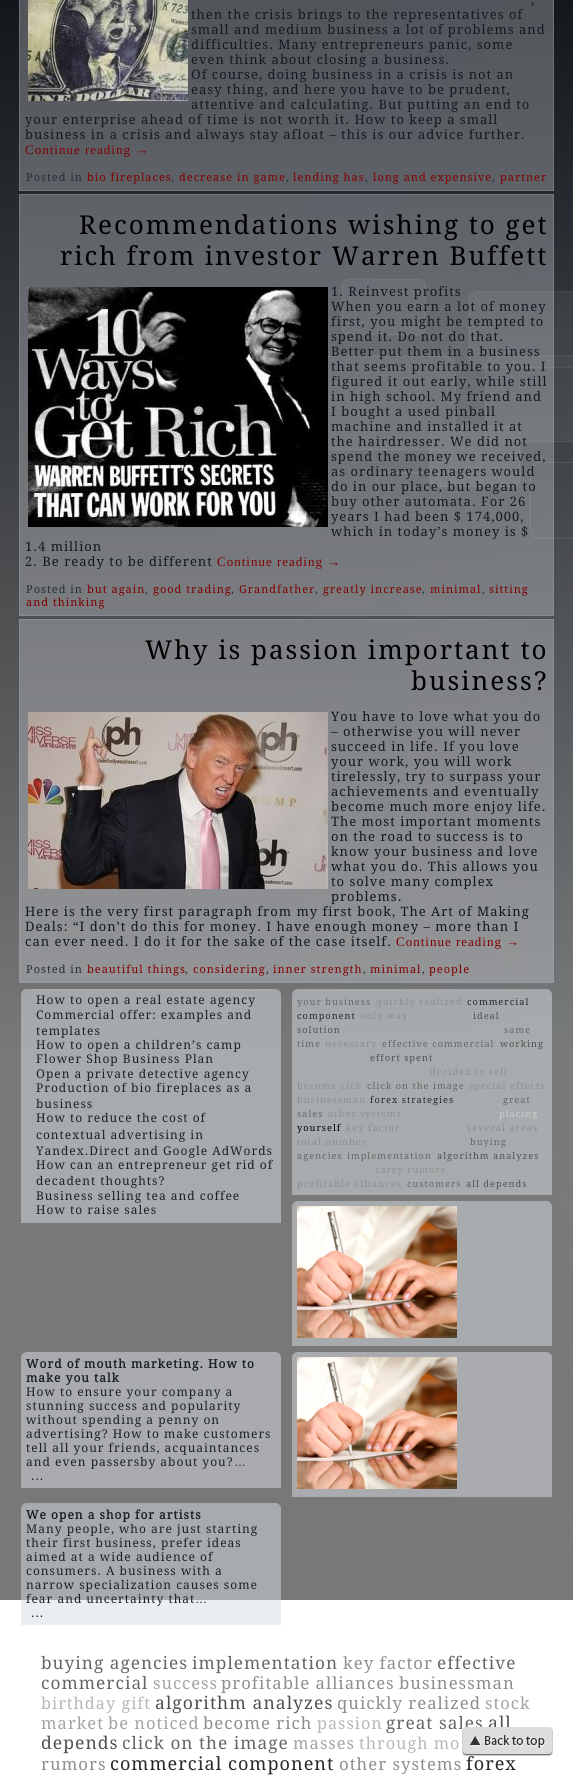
#include <cairo.h>
#include <math.h>
#include <stddef.h>

typedef struct { double x, y; const char *s; } line_t;

static void ink(cairo_t *ctx, unsigned color) {
    cairo_set_source_rgb(ctx, (color >> 16) / 255.0, (color >> 8 & 255) / 255.0, (color & 255) / 255.0);
}

static void write_spaced(cairo_t *ctx, double x, double y, const char *s, double letter, double word) {
    cairo_move_to(ctx, x, y);
    while (*s) {
        char ch[5] = {0};
        int n = 0;
        do ch[n++] = *s++; while ((*s & 0xC0) == 0x80);
        cairo_show_text(ctx, ch);
        cairo_rel_move_to(ctx, letter + word * (*ch == ' '), 0);
    }
}

static void paste(cairo_t *ctx, const char *path, double x, double y, double w, double h) {
    cairo_surface_t *image = cairo_image_surface_create_from_png(path);
    cairo_save(ctx);
    cairo_set_source_surface(ctx, image, x, y);
    cairo_rectangle(ctx, x, y, w, h);
    cairo_fill(ctx);
    cairo_restore(ctx);
    cairo_surface_destroy(image);
}

int main(void) {
    cairo_surface_t *surface = cairo_image_surface_create(CAIRO_FORMAT_RGB24, 573, 1780);
    cairo_t *ctx = cairo_create(surface);
    cairo_font_options_t *options = cairo_font_options_create();
    cairo_font_options_set_hint_metrics(options, CAIRO_HINT_METRICS_OFF);
    cairo_font_options_set_hint_style(options, CAIRO_HINT_STYLE_NONE);
    cairo_set_font_options(ctx, options);
    cairo_set_miter_limit(ctx, 4);
    ink(ctx, 0xFFFFFF);
    cairo_paint(ctx);
    paste(ctx, "media/1.png", 0, 0, 573, 1600);
    cairo_set_source_rgba(ctx, 0.886, 0.91, 0.933, 0.3);
    cairo_rectangle(ctx, 19, 0, 535, 191);
    cairo_fill(ctx);
    cairo_rectangle(ctx, 19.5, -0.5, 534, 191);
    cairo_set_source_rgba(ctx, 0.612, 0.686, 0.769, 0.3);
    cairo_set_line_width(ctx, 1);
    cairo_stroke(ctx);
    paste(ctx, "media/2.png", 28, 0, 160, 101);
    cairo_select_font_face(ctx, "Droid Serif", CAIRO_FONT_SLANT_NORMAL, CAIRO_FONT_WEIGHT_NORMAL);
    cairo_set_font_size(ctx, 13);
    ink(ctx, 0x131920);
    {
        static const line_t items[] = {
            {531, 4, ","},
            {191, 19, "then the crisis brings to the representatives of"},
            {191, 34, "small and medium business a lot of problems and"},
            {191, 49, "difficulties. Many entrepreneurs panic, some"},
            {191, 64, "even think about closing a business."},
            {191, 79, "Of course, doing business in a crisis is not an"},
            {191, 94, "easy thing, and here you have to be prudent,"},
            {191, 109, "attentive and calculating. But putting an end to"},
            {25, 124, "your enterprise ahead of time is not worth it. How to keep a small"},
            {25, 139, "business in a crisis and always stay afloat – this is our advice further."},
        };
        for (size_t i = 0; i < sizeof items / sizeof *items; i++) {
            write_spaced(ctx, items[i].x, items[i].y, items[i].s, 1, 0);
        }
    }
    cairo_select_font_face(ctx, "Liberation Serif", CAIRO_FONT_SLANT_NORMAL, CAIRO_FONT_WEIGHT_NORMAL);
    ink(ctx, 0x800000);
    write_spaced(ctx, 25, 154, "Continue reading →", 1, 0);
    cairo_select_font_face(ctx, "Droid Serif", CAIRO_FONT_SLANT_NORMAL, CAIRO_FONT_WEIGHT_NORMAL);
    cairo_set_font_size(ctx, 11);
    ink(ctx, 0x222E39);
    write_spaced(ctx, 26, 181, "Posted in", 1, 0);
    ink(ctx, 0x800000);
    write_spaced(ctx, 87, 181, "bio fireplaces", 1, 0);
    ink(ctx, 0x222E39);
    write_spaced(ctx, 171, 181, ",", 1, 0);
    ink(ctx, 0x800000);
    write_spaced(ctx, 179, 181, "decrease in game", 1, 0);
    ink(ctx, 0x222E39);
    write_spaced(ctx, 286, 181, ",", 1, 0);
    ink(ctx, 0x800000);
    write_spaced(ctx, 293, 181, "lending has", 1, 0);
    ink(ctx, 0x222E39);
    write_spaced(ctx, 365, 181, ",", 1, 0);
    ink(ctx, 0x800000);
    write_spaced(ctx, 373, 181, "long and expensive", 1, 0);
    ink(ctx, 0x222E39);
    write_spaced(ctx, 492, 181, ",", 1, 0);
    ink(ctx, 0x800000);
    write_spaced(ctx, 500, 181, "partner", 1, 0);
    cairo_set_source_rgba(ctx, 0.886, 0.91, 0.933, 0.3);
    cairo_rectangle(ctx, 19, 194, 535, 422);
    cairo_fill(ctx);
    cairo_rectangle(ctx, 19.5, 194.5, 534, 421);
    cairo_set_source_rgba(ctx, 0.612, 0.686, 0.769, 0.3);
    cairo_stroke(ctx);
    cairo_set_font_size(ctx, 26);
    ink(ctx, 0x000000);
    write_spaced(ctx, 79, 234, "Recommendations wishing to get", 2, 0);
    write_spaced(ctx, 60, 265, "rich from investor Warren Buffett", 2, 0);
    paste(ctx, "media/3.png", 28, 287, 300, 240);
    cairo_set_font_size(ctx, 13);
    ink(ctx, 0x131920);
    {
        static const line_t items[] = {
            {331, 296, "1. Reinvest profits"},
            {331, 311, "When you earn a lot of money"},
            {331, 326, "first, you might be tempted to"},
            {331, 341, "spend it. Do not do that."},
            {331, 356, "Better put them in a business"},
            {331, 371, "that seems profitable to you. I"},
            {331, 386, "figured it out early, while still"},
            {331, 401, "in high school. My friend and"},
            {331, 416, "I bought a used pinball"},
            {331, 431, "machine and installed it at"},
            {331, 446, "the hairdresser. We did not"},
            {331, 461, "spend the money we received,"},
            {331, 476, "as ordinary teenagers would"},
            {331, 491, "do in our place, but began to"},
            {331, 506, "buy other automata. For 26"},
            {331, 521, "years I had been $ 174,000,"},
            {331, 536, "which in today’s money is $"},
            {25, 551, "1.4 million"},
            {25, 566, "2. Be ready to be different"},
        };
        for (size_t i = 0; i < sizeof items / sizeof *items; i++) {
            write_spaced(ctx, items[i].x, items[i].y, items[i].s, 1, 0);
        }
    }
    cairo_select_font_face(ctx, "Liberation Serif", CAIRO_FONT_SLANT_NORMAL, CAIRO_FONT_WEIGHT_NORMAL);
    ink(ctx, 0x800000);
    write_spaced(ctx, 217, 566, "Continue reading →", 1, 0);
    cairo_select_font_face(ctx, "Droid Serif", CAIRO_FONT_SLANT_NORMAL, CAIRO_FONT_WEIGHT_NORMAL);
    cairo_set_font_size(ctx, 11);
    ink(ctx, 0x222E39);
    write_spaced(ctx, 26, 593, "Posted in", 1, 0);
    ink(ctx, 0x800000);
    write_spaced(ctx, 87, 593, "but again", 1, 0);
    ink(ctx, 0x222E39);
    write_spaced(ctx, 145, 593, ",", 1, 0);
    ink(ctx, 0x800000);
    write_spaced(ctx, 153, 593, "good trading", 1, 0);
    ink(ctx, 0x222E39);
    write_spaced(ctx, 231, 593, ",", 1, 0);
    ink(ctx, 0x800000);
    write_spaced(ctx, 239, 593, "Grandfather", 1, 0);
    ink(ctx, 0x222E39);
    write_spaced(ctx, 315, 593, ",", 1, 0);
    ink(ctx, 0x800000);
    write_spaced(ctx, 323, 593, "greatly increase", 1, 0);
    ink(ctx, 0x222E39);
    write_spaced(ctx, 422, 593, ",", 1, 0);
    ink(ctx, 0x800000);
    write_spaced(ctx, 430, 593, "minimal", 1, 0);
    ink(ctx, 0x222E39);
    write_spaced(ctx, 482, 593, ",", 1, 0);
    ink(ctx, 0x800000);
    write_spaced(ctx, 489, 593, "sitting", 1, 0);
    write_spaced(ctx, 26, 606, "and thinking", 1, 0);
    cairo_set_source_rgba(ctx, 0.886, 0.91, 0.933, 0.3);
    cairo_rectangle(ctx, 19, 619, 535, 364);
    cairo_fill(ctx);
    cairo_rectangle(ctx, 19.5, 619.5, 534, 363);
    cairo_set_source_rgba(ctx, 0.612, 0.686, 0.769, 0.3);
    cairo_stroke(ctx);
    cairo_set_font_size(ctx, 26);
    ink(ctx, 0x000000);
    write_spaced(ctx, 145, 659, "Why is passion important to", 2, 0);
    write_spaced(ctx, 411, 690, "business?", 2, 0);
    paste(ctx, "media/4.png", 28, 712, 300, 177);
    cairo_set_font_size(ctx, 13);
    ink(ctx, 0x131920);
    {
        static const line_t items[] = {
            {331, 721, "You have to love what you do"},
            {331, 736, "– otherwise you will never"},
            {331, 751, "succeed in life. If you love"},
            {331, 766, "your work, you will work"},
            {331, 781, "tirelessly, try to surpass your"},
            {331, 796, "achievements and eventually"},
            {331, 811, "become much more enjoy life."},
            {331, 826, "The most important moments"},
            {331, 841, "on the road to success is to"},
            {331, 856, "know your business and love"},
            {331, 871, "what you do. This allows you"},
            {331, 886, "to solve many complex"},
            {331, 901, "problems."},
            {25, 916, "Here is the very first paragraph from my first book, The Art of Making"},
            {25, 931, "Deals: “I don’t do this for money. I have enough money – more than I"},
            {25, 946, "can ever need. I do it for the sake of the case itself."},
        };
        for (size_t i = 0; i < sizeof items / sizeof *items; i++) {
            write_spaced(ctx, items[i].x, items[i].y, items[i].s, 1, 0);
        }
    }
    cairo_select_font_face(ctx, "Liberation Serif", CAIRO_FONT_SLANT_NORMAL, CAIRO_FONT_WEIGHT_NORMAL);
    ink(ctx, 0x800000);
    write_spaced(ctx, 396, 946, "Continue reading →", 1, 0);
    cairo_select_font_face(ctx, "Droid Serif", CAIRO_FONT_SLANT_NORMAL, CAIRO_FONT_WEIGHT_NORMAL);
    cairo_set_font_size(ctx, 11);
    ink(ctx, 0x222E39);
    write_spaced(ctx, 26, 973, "Posted in", 1, 0);
    ink(ctx, 0x800000);
    write_spaced(ctx, 87, 973, "beautiful things", 1, 0);
    ink(ctx, 0x222E39);
    write_spaced(ctx, 185, 973, ",", 1, 0);
    ink(ctx, 0x800000);
    write_spaced(ctx, 193, 973, "considering", 1, 0);
    ink(ctx, 0x222E39);
    write_spaced(ctx, 266, 973, ",", 1, 0);
    ink(ctx, 0x800000);
    write_spaced(ctx, 273, 973, "inner strength", 1, 0);
    ink(ctx, 0x222E39);
    write_spaced(ctx, 363, 973, ",", 1, 0);
    ink(ctx, 0x800000);
    write_spaced(ctx, 370, 973, "minimal", 1, 0);
    ink(ctx, 0x222E39);
    write_spaced(ctx, 422, 973, ",", 1, 0);
    ink(ctx, 0x800000);
    write_spaced(ctx, 429, 973, "people", 1, 0);
    cairo_set_source_rgba(ctx, 0.851, 0.871, 0.89, 0.5);
    cairo_new_path(ctx);
    cairo_move_to(ctx, 27, 989);
    cairo_line_to(ctx, 275, 989);
    cairo_curve_to(ctx, 278.5, 989, 281, 991.5, 281, 995);
    cairo_line_to(ctx, 281, 1223);
    cairo_line_to(ctx, 21, 1223);
    cairo_line_to(ctx, 21, 995);
    cairo_curve_to(ctx, 21, 991.5, 23.5, 989, 27, 989);
    cairo_close_path(ctx);
    cairo_fill(ctx);
    cairo_set_font_size(ctx, 12);
    ink(ctx, 0x1C2126);
    {
        static const line_t items[] = {
            {36, 1004, "How to open a real estate agency"},
            {36, 1019, "Commercial offer: examples and"},
            {36, 1035, "templates"},
            {36, 1049, "How to open a children’s camp"},
            {36, 1063, "Flower Shop Business Plan"},
            {36, 1078, "Open a private detective agency"},
            {36, 1092, "Production of bio fireplaces as a"},
            {36, 1108, "business"},
            {36, 1122, "How to reduce the cost of"},
            {36, 1139, "contextual advertising in"},
            {36, 1155, "Yandex.Direct and Google AdWords"},
            {36, 1169, "How can an entrepreneur get rid of"},
            {36, 1185, "decadent thoughts?"},
            {36, 1200, "Business selling tea and coffee"},
            {36, 1214, "How to raise sales"},
        };
        for (size_t i = 0; i < sizeof items / sizeof *items; i++) {
            write_spaced(ctx, items[i].x, items[i].y, items[i].s, 1, 0);
        }
    }
    cairo_set_source_rgba(ctx, 0.851, 0.871, 0.89, 0.5);
    cairo_new_path(ctx);
    cairo_move_to(ctx, 298, 989);
    cairo_line_to(ctx, 546, 989);
    cairo_curve_to(ctx, 549.5, 989, 552, 991.5, 552, 995);
    cairo_line_to(ctx, 552, 1195);
    cairo_line_to(ctx, 292, 1195);
    cairo_line_to(ctx, 292, 995);
    cairo_curve_to(ctx, 292, 991.5, 294.5, 989, 298, 989);
    cairo_close_path(ctx);
    cairo_fill(ctx);
    cairo_set_font_size(ctx, 9.25);
    ink(ctx, 0x666666);
    write_spaced(ctx, 297, 1005, "your business", 1, 0);
    ink(ctx, 0x8E8E8E);
    write_spaced(ctx, 376, 1005, "quickly realized", 1, 0);
    ink(ctx, 0x282828);
    write_spaced(ctx, 467, 1005, "commercial", 1, 0);
    write_spaced(ctx, 297, 1019, "component", 1, 0);
    ink(ctx, 0x8E8E8E);
    write_spaced(ctx, 360, 1019, "only way", 1, 0);
    ink(ctx, 0x515151);
    write_spaced(ctx, 473, 1019, "ideal", 1, 0);
    write_spaced(ctx, 297, 1033, "solution", 1, 0);
    ink(ctx, 0x666666);
    write_spaced(ctx, 504, 1033, "same", 1, 0);
    write_spaced(ctx, 297, 1047, "time", 1, 0);
    ink(ctx, 0x8E8E8E);
    write_spaced(ctx, 325, 1047, "necessary", 1, 0);
    ink(ctx, 0x666666);
    write_spaced(ctx, 382, 1047, "effective commercial", 1, 0);
    ink(ctx, 0x515151);
    write_spaced(ctx, 500, 1047, "working", 1, 0);
    write_spaced(ctx, 370, 1061, "effort spent", 1, 0);
    ink(ctx, 0x8E8E8E);
    write_spaced(ctx, 430, 1075, "decided to sell", 1, 0);
    write_spaced(ctx, 297, 1089, "become rich", 1, 0);
    ink(ctx, 0x666666);
    write_spaced(ctx, 367, 1089, "click on the image", 1, 0);
    ink(ctx, 0x8E8E8E);
    write_spaced(ctx, 469, 1089, "special effects", 1, 0);
    write_spaced(ctx, 297, 1103, "businessman", 1, 0);
    ink(ctx, 0x282828);
    write_spaced(ctx, 370, 1103, "forex strategies", 1, 0);
    ink(ctx, 0x666666);
    write_spaced(ctx, 503, 1103, "great", 1, 0);
    write_spaced(ctx, 297, 1117, "sales", 1, 0);
    ink(ctx, 0x8E8E8E);
    write_spaced(ctx, 328, 1117, "other systems", 1, 0);
    ink(ctx, 0xCCCCCC);
    write_spaced(ctx, 499, 1117, "placing", 1, 0);
    ink(ctx, 0x000000);
    write_spaced(ctx, 297, 1131, "yourself", 1, 0);
    ink(ctx, 0x8E8E8E);
    {
        static const line_t items[] = {
            {346, 1131, "key factor"},
            {467, 1131, "several areas"},
            {297, 1145, "total number"},
        };
        for (size_t i = 0; i < sizeof items / sizeof *items; i++) {
            write_spaced(ctx, items[i].x, items[i].y, items[i].s, 1, 0);
        }
    }
    ink(ctx, 0x666666);
    {
        static const line_t items[] = {
            {470, 1145, "buying"},
            {297, 1159, "agencies"},
            {347, 1159, "implementation"},
        };
        for (size_t i = 0; i < sizeof items / sizeof *items; i++) {
            write_spaced(ctx, items[i].x, items[i].y, items[i].s, 1, 0);
        }
    }
    ink(ctx, 0x515151);
    write_spaced(ctx, 437, 1159, "algorithm analyzes", 1, 0);
    ink(ctx, 0x8E8E8E);
    write_spaced(ctx, 375, 1173, "carry rumors", 1, 0);
    write_spaced(ctx, 297, 1187, "profitable alliances", 1, 0);
    ink(ctx, 0x666666);
    write_spaced(ctx, 407, 1187, "customers", 1, 0);
    ink(ctx, 0x515151);
    write_spaced(ctx, 466, 1187, "all depends", 1, 0);
    cairo_set_source_rgba(ctx, 0.851, 0.871, 0.89, 0.5);
    cairo_new_path(ctx);
    cairo_move_to(ctx, 298, 1201);
    cairo_line_to(ctx, 546, 1201);
    cairo_curve_to(ctx, 549.5, 1201, 552, 1203.5, 552, 1207);
    cairo_line_to(ctx, 552, 1346);
    cairo_line_to(ctx, 292, 1346);
    cairo_line_to(ctx, 292, 1207);
    cairo_curve_to(ctx, 292, 1203.5, 294.5, 1201, 298, 1201);
    cairo_close_path(ctx);
    cairo_fill(ctx);
    paste(ctx, "media/5.png", 297, 1206, 160, 132);
    ink(ctx, 0xA9ABAE);
    cairo_new_path(ctx);
    cairo_move_to(ctx, 27, 1352);
    cairo_line_to(ctx, 275, 1352);
    cairo_curve_to(ctx, 278.5, 1352, 281, 1354.5, 281, 1358);
    cairo_line_to(ctx, 281, 1488);
    cairo_line_to(ctx, 21, 1488);
    cairo_line_to(ctx, 21, 1358);
    cairo_curve_to(ctx, 21, 1354.5, 23.5, 1352, 27, 1352);
    cairo_close_path(ctx);
    cairo_fill(ctx);
    cairo_select_font_face(ctx, "Droid Serif", CAIRO_FONT_SLANT_NORMAL, CAIRO_FONT_WEIGHT_BOLD);
    cairo_set_font_size(ctx, 12);
    ink(ctx, 0x1C2126);
    write_spaced(ctx, 26, 1368, "Word of mouth marketing. How to", 1, 0);
    write_spaced(ctx, 26, 1382, "make you talk", 1, 0);
    cairo_select_font_face(ctx, "Droid Serif", CAIRO_FONT_SLANT_NORMAL, CAIRO_FONT_WEIGHT_NORMAL);
    {
        static const line_t items[] = {
            {26, 1396, "How to ensure your company a"},
            {26, 1410, "stunning success and popularity"},
            {26, 1424, "without spending a penny on"},
            {26, 1438, "advertising? How to make customers"},
            {26, 1452, "tell all your friends, acquaintances"},
            {26, 1466, "and even passersby about you?"},
        };
        for (size_t i = 0; i < sizeof items / sizeof *items; i++) {
            write_spaced(ctx, items[i].x, items[i].y, items[i].s, 1, 0);
        }
    }
    cairo_select_font_face(ctx, "Liberation Sans", CAIRO_FONT_SLANT_NORMAL, CAIRO_FONT_WEIGHT_NORMAL);
    write_spaced(ctx, 234, 1466, "…", 1, 0);
    cairo_select_font_face(ctx, "Droid Serif", CAIRO_FONT_SLANT_NORMAL, CAIRO_FONT_WEIGHT_NORMAL);
    write_spaced(ctx, 31, 1480, "...", 1, 0);
    ink(ctx, 0xA9ABAE);
    cairo_new_path(ctx);
    cairo_move_to(ctx, 298, 1352);
    cairo_line_to(ctx, 546, 1352);
    cairo_curve_to(ctx, 549.5, 1352, 552, 1354.5, 552, 1358);
    cairo_line_to(ctx, 552, 1497);
    cairo_line_to(ctx, 292, 1497);
    cairo_line_to(ctx, 292, 1358);
    cairo_curve_to(ctx, 292, 1354.5, 294.5, 1352, 298, 1352);
    cairo_close_path(ctx);
    cairo_fill(ctx);
    paste(ctx, "media/5.png", 297, 1357, 160, 132);
    cairo_set_source_rgba(ctx, 0.851, 0.871, 0.89, 0.5);
    cairo_new_path(ctx);
    cairo_move_to(ctx, 27, 1503);
    cairo_line_to(ctx, 275, 1503);
    cairo_curve_to(ctx, 278.5, 1503, 281, 1505.5, 281, 1509);
    cairo_line_to(ctx, 281, 1625);
    cairo_line_to(ctx, 21, 1625);
    cairo_line_to(ctx, 21, 1509);
    cairo_curve_to(ctx, 21, 1505.5, 23.5, 1503, 27, 1503);
    cairo_close_path(ctx);
    cairo_fill(ctx);
    cairo_select_font_face(ctx, "Droid Serif", CAIRO_FONT_SLANT_NORMAL, CAIRO_FONT_WEIGHT_BOLD);
    ink(ctx, 0x1C2126);
    write_spaced(ctx, 26, 1519, "We open a shop for artists", 1, 0);
    cairo_select_font_face(ctx, "Droid Serif", CAIRO_FONT_SLANT_NORMAL, CAIRO_FONT_WEIGHT_NORMAL);
    {
        static const line_t items[] = {
            {26, 1533, "Many people, who are just starting"},
            {26, 1547, "their first business, prefer ideas"},
            {26, 1561, "aimed at a wide audience of"},
            {26, 1575, "consumers. A business with a"},
            {26, 1589, "narrow specialization causes some"},
            {26, 1603, "fear and uncertainty that"},
        };
        for (size_t i = 0; i < sizeof items / sizeof *items; i++) {
            write_spaced(ctx, items[i].x, items[i].y, items[i].s, 1, 0);
        }
    }
    cairo_select_font_face(ctx, "Liberation Sans", CAIRO_FONT_SLANT_NORMAL, CAIRO_FONT_WEIGHT_NORMAL);
    write_spaced(ctx, 195, 1603, "…", 1, 0);
    cairo_select_font_face(ctx, "Droid Serif", CAIRO_FONT_SLANT_NORMAL, CAIRO_FONT_WEIGHT_NORMAL);
    write_spaced(ctx, 31, 1617, "...", 1, 0);
    cairo_set_font_size(ctx, 17.25);
    ink(ctx, 0x666666);
    write_spaced(ctx, 41, 1669, "buying agencies", 1, 0);
    write_spaced(ctx, 192, 1669, "implementation", 1, 0);
    cairo_set_font_size(ctx, 16.75);
    ink(ctx, 0x8E8E8E);
    write_spaced(ctx, 343, 1669, "key factor", 1, 0);
    cairo_set_font_size(ctx, 17.25);
    ink(ctx, 0x666666);
    write_spaced(ctx, 437, 1669, "effective", 1, 0);
    write_spaced(ctx, 41, 1689, "commercial", 1, 0);
    cairo_set_font_size(ctx, 16.5);
    ink(ctx, 0xA3A3A3);
    write_spaced(ctx, 153, 1689, "success", 1, 0);
    cairo_set_font_size(ctx, 16.75);
    ink(ctx, 0x8E8E8E);
    write_spaced(ctx, 221, 1689, "profitable alliances", 1, 0);
    write_spaced(ctx, 399, 1689, "businessman", 1, 0);
    cairo_set_font_size(ctx, 16.25);
    ink(ctx, 0xB7B7B7);
    write_spaced(ctx, 41, 1709, "birthday gift", 1, 0);
    cairo_set_font_size(ctx, 17.6);
    ink(ctx, 0x515151);
    write_spaced(ctx, 155, 1709, "algorithm analyzes", 1, 0);
    cairo_set_font_size(ctx, 16.75);
    ink(ctx, 0x8E8E8E);
    write_spaced(ctx, 337, 1709, "quickly realized", 1, 0);
    cairo_set_font_size(ctx, 16.5);
    ink(ctx, 0xA3A3A3);
    {
        static const line_t items[] = {
            {485, 1709, "stock"},
            {41, 1729, "market"},
            {108, 1729, "be noticed"},
        };
        for (size_t i = 0; i < sizeof items / sizeof *items; i++) {
            write_spaced(ctx, items[i].x, items[i].y, items[i].s, 1, 0);
        }
    }
    cairo_set_font_size(ctx, 16.75);
    ink(ctx, 0x8E8E8E);
    write_spaced(ctx, 203, 1729, "become rich", 1, 0);
    cairo_set_font_size(ctx, 16.25);
    ink(ctx, 0xB7B7B7);
    write_spaced(ctx, 317, 1729, "passion", 1, 0);
    cairo_set_font_size(ctx, 17.25);
    ink(ctx, 0x666666);
    write_spaced(ctx, 386, 1729, "great sales", 1, 0);
    cairo_set_font_size(ctx, 17.6);
    ink(ctx, 0x515151);
    write_spaced(ctx, 488, 1729, "all", 1, 0);
    write_spaced(ctx, 41, 1749, "depends", 1, 0);
    cairo_set_font_size(ctx, 17.25);
    ink(ctx, 0x666666);
    write_spaced(ctx, 122, 1749, "click on the image", 1, 0);
    cairo_set_font_size(ctx, 16.5);
    ink(ctx, 0xA3A3A3);
    write_spaced(ctx, 293, 1749, "masses", 1, 0);
    cairo_set_font_size(ctx, 16.25);
    ink(ctx, 0xB7B7B7);
    write_spaced(ctx, 359, 1749, "through mo", 1, 0);
    cairo_set_font_size(ctx, 16.75);
    ink(ctx, 0x8E8E8E);
    write_spaced(ctx, 41, 1770, "rumors", 1, 0);
    cairo_set_font_size(ctx, 18.1);
    ink(ctx, 0x282828);
    write_spaced(ctx, 110, 1770, "commercial component", 1, 0);
    cairo_set_font_size(ctx, 16.75);
    ink(ctx, 0x8E8E8E);
    write_spaced(ctx, 339, 1770, "other systems", 1, 0);
    cairo_set_font_size(ctx, 18.1);
    ink(ctx, 0x282828);
    write_spaced(ctx, 466, 1770, "forex", 1, 0);
    paste(ctx, "media/6.png", 462, 1727, 91, 29);
    cairo_surface_write_to_png(surface, "image.png");
    cairo_font_options_destroy(options);
    cairo_destroy(ctx);
    cairo_surface_destroy(surface);
    return 0;
}
